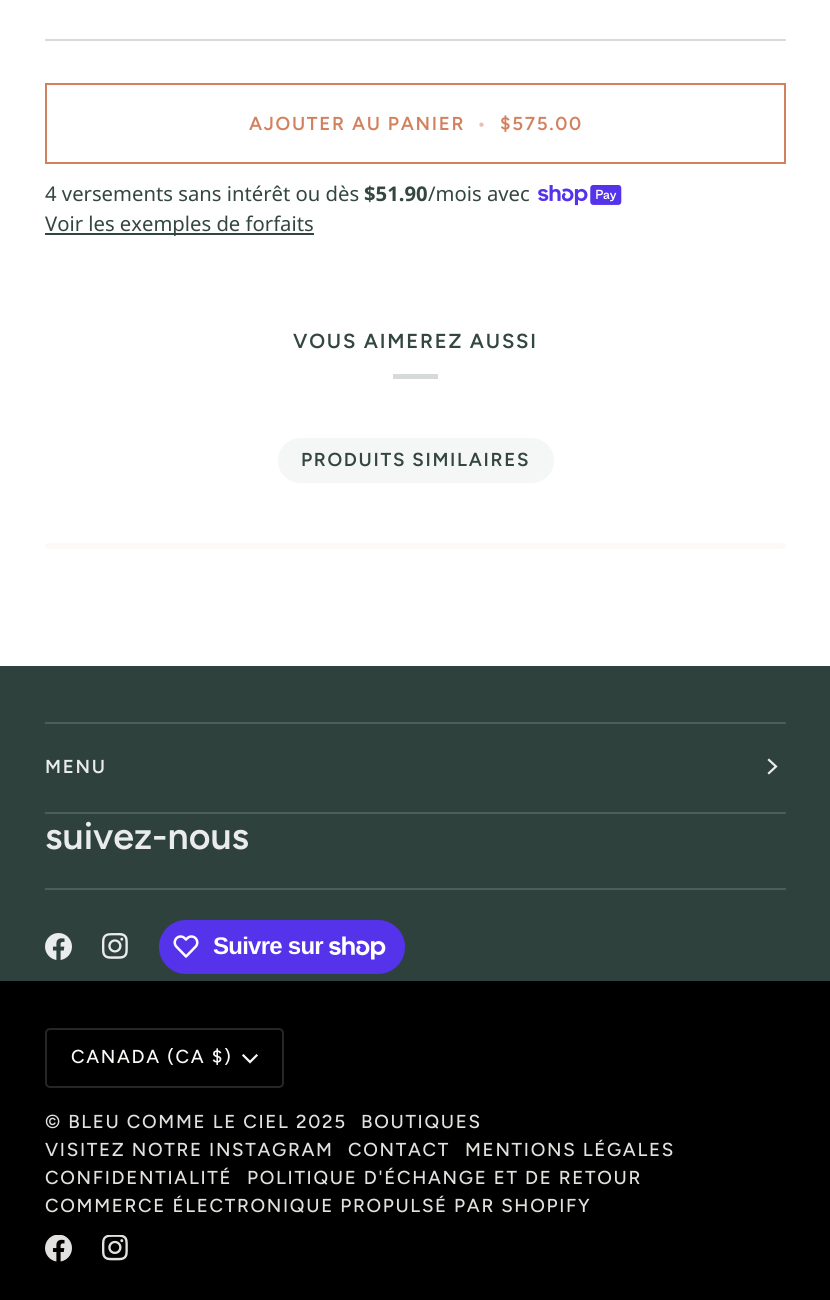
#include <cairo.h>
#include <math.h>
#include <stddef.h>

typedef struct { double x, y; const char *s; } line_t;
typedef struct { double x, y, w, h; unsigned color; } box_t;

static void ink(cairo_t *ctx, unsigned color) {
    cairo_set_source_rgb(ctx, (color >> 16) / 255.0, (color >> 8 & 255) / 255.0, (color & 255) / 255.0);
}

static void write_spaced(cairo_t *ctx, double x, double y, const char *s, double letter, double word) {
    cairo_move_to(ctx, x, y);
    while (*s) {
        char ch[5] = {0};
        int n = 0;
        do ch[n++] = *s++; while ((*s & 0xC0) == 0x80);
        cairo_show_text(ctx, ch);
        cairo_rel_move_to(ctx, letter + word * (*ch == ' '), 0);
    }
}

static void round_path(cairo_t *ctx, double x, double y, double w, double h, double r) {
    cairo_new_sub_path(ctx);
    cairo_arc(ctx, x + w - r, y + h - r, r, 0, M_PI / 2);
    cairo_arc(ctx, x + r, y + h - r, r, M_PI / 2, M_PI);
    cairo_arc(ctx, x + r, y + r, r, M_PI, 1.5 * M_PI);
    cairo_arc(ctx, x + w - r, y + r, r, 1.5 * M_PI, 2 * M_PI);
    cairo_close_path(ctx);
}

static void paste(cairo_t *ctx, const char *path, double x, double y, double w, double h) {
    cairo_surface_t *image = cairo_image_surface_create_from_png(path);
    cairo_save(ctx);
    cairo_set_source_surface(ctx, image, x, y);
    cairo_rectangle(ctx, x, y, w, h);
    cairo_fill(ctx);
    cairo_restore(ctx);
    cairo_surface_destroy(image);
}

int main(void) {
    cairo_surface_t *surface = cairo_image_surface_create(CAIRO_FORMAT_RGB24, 830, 1300);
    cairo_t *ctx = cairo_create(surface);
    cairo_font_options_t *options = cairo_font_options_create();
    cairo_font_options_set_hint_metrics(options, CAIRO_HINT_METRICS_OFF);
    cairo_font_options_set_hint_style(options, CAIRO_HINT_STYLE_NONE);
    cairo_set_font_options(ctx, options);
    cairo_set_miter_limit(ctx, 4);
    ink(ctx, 0xFFFFFF);
    cairo_paint(ctx);
    ink(ctx, 0xD6DAD9);
    cairo_rectangle(ctx, 45, 39, 741, 2);
    cairo_fill(ctx);
    cairo_rectangle(ctx, 46, 84, 739, 79);
    ink(ctx, 0xD2815F);
    cairo_stroke(ctx);
    cairo_select_font_face(ctx, "Figtree SemiBold", CAIRO_FONT_SLANT_NORMAL, CAIRO_FONT_WEIGHT_NORMAL);
    cairo_set_font_size(ctx, 18.75);
    write_spaced(ctx, 249, 130, "AJOUTER AU PANIER", 1.7, 0);
    ink(ctx, 0xE9C0AF);
    write_spaced(ctx, 477, 130, "•", 1.7, 0);
    ink(ctx, 0xD2815F);
    write_spaced(ctx, 500, 130, "$575.00", 1.7, 0);
    cairo_select_font_face(ctx, "Noto Sans", CAIRO_FONT_SLANT_NORMAL, CAIRO_FONT_WEIGHT_NORMAL);
    cairo_set_font_size(ctx, 20.25);
    ink(ctx, 0x334641);
    cairo_move_to(ctx, 45, 201);
    cairo_show_text(ctx, "4 versements sans intérêt ou dès");
    cairo_select_font_face(ctx, "Noto Sans", CAIRO_FONT_SLANT_NORMAL, CAIRO_FONT_WEIGHT_BOLD);
    cairo_move_to(ctx, 364, 201);
    cairo_show_text(ctx, "$51.90");
    cairo_select_font_face(ctx, "Noto Sans", CAIRO_FONT_SLANT_NORMAL, CAIRO_FONT_WEIGHT_NORMAL);
    cairo_move_to(ctx, 428, 201);
    cairo_show_text(ctx, "/mois avec");
    paste(ctx, "media/1.png", 538, 185, 84, 21);
    cairo_rectangle(ctx, 45, 233, 269, 2);
    cairo_fill(ctx);
    cairo_move_to(ctx, 45, 231);
    cairo_show_text(ctx, "Voir les exemples de forfaits");
    cairo_select_font_face(ctx, "Figtree SemiBold", CAIRO_FONT_SLANT_NORMAL, CAIRO_FONT_WEIGHT_NORMAL);
    write_spaced(ctx, 293, 348, "VOUS AIMEREZ AUSSI", 1.8, 0);
    ink(ctx, 0xD6DAD9);
    cairo_rectangle(ctx, 393, 374, 45, 5);
    cairo_fill(ctx);
    ink(ctx, 0xF5F6F6);
    round_path(ctx, 278, 438, 276, 45, 22.5);
    cairo_fill(ctx);
    cairo_set_font_size(ctx, 18.75);
    ink(ctx, 0x334641);
    write_spaced(ctx, 301, 466, "PRODUITS SIMILAIRES", 1.7, 0);
    ink(ctx, 0xFCFAF7);
    round_path(ctx, 45, 543, 741, 6, 3);
    cairo_fill(ctx);
    {
        static const box_t items[] = {
            {0, 666, 830, 315, 0x2E413D},
            {45, 722, 741, 2, 0x4D5E5A},
            {45, 812, 741, 2, 0x4D5E5A},
        };
        for (size_t i = 0; i < sizeof items / sizeof *items; i++) {
            ink(ctx, items[i].color);
            cairo_rectangle(ctx, items[i].x, items[i].y, items[i].w, items[i].h);
            cairo_fill(ctx);
        }
    }
    ink(ctx, 0xEAECEC);
    write_spaced(ctx, 45, 773, "MENU", 1.7, 0);
    cairo_new_path(ctx);
    cairo_move_to(ctx, 769, 773);
    cairo_line_to(ctx, 776, 766.5);
    cairo_line_to(ctx, 769, 760);
    cairo_set_line_width(ctx, 2.2);
    cairo_set_line_cap(ctx, CAIRO_LINE_CAP_SQUARE);
    cairo_stroke(ctx);
    cairo_set_font_size(ctx, 37.5);
    cairo_move_to(ctx, 45, 849);
    cairo_show_text(ctx, "suivez-nous");
    ink(ctx, 0x4D5E5A);
    cairo_rectangle(ctx, 45, 888, 741, 2);
    cairo_fill(ctx);
    paste(ctx, "media/2.png", 45, 933, 27, 27);
    paste(ctx, "media/3.png", 102, 933, 26, 26);
    ink(ctx, 0x5433EB);
    round_path(ctx, 159, 920, 246, 54, 27);
    cairo_fill(ctx);
    paste(ctx, "media/4.png", 173, 935, 26, 23);
    cairo_select_font_face(ctx, "Liberation Sans", CAIRO_FONT_SLANT_NORMAL, CAIRO_FONT_WEIGHT_BOLD);
    cairo_set_font_size(ctx, 24);
    ink(ctx, 0xFFFFFF);
    write_spaced(ctx, 213, 954, "Suivre sur", -0.75, 0);
    paste(ctx, "media/5.png", 329, 936, 57, 24);
    ink(ctx, 0x000000);
    cairo_rectangle(ctx, 0, 981, 830, 319);
    cairo_fill(ctx);
    round_path(ctx, 46, 1029, 237, 58, 4);
    ink(ctx, 0x262625);
    cairo_set_line_width(ctx, 2);
    cairo_set_line_cap(ctx, CAIRO_LINE_CAP_BUTT);
    cairo_stroke(ctx);
    cairo_select_font_face(ctx, "Figtree Medium", CAIRO_FONT_SLANT_NORMAL, CAIRO_FONT_WEIGHT_NORMAL);
    cairo_set_font_size(ctx, 18.75);
    ink(ctx, 0xFCFAF7);
    write_spaced(ctx, 71, 1063, "CANADA (CA $)", 1.7, 0);
    cairo_new_path(ctx);
    cairo_move_to(ctx, 243.5, 1055.5);
    cairo_line_to(ctx, 250, 1062);
    cairo_line_to(ctx, 256.5, 1055.5);
    cairo_set_line_width(ctx, 2.2);
    cairo_set_line_cap(ctx, CAIRO_LINE_CAP_SQUARE);
    cairo_stroke(ctx);
    ink(ctx, 0xE3E1DE);
    {
        static const line_t items[] = {
            {45, 1128, "© BLEU COMME LE CIEL"},
            {296, 1128, "2025"},
            {361, 1128, "BOUTIQUES"},
            {45, 1156, "VISITEZ NOTRE INSTAGRAM"},
            {348, 1156, "CONTACT"},
            {465, 1156, "MENTIONS LÉGALES"},
            {45, 1184, "CONFIDENTIALITÉ"},
            {247, 1184, "POLITIQUE D'ÉCHANGE ET DE RETOUR"},
            {45, 1212, "COMMERCE ÉLECTRONIQUE PROPULSÉ PAR SHOPIFY"},
        };
        for (size_t i = 0; i < sizeof items / sizeof *items; i++) {
            write_spaced(ctx, items[i].x, items[i].y, items[i].s, 1.7, 0);
        }
    }
    paste(ctx, "media/6.png", 45, 1235, 27, 27);
    paste(ctx, "media/7.png", 102, 1235, 26, 26);
    cairo_surface_write_to_png(surface, "image.png");
    cairo_font_options_destroy(options);
    cairo_destroy(ctx);
    cairo_surface_destroy(surface);
    return 0;
}
